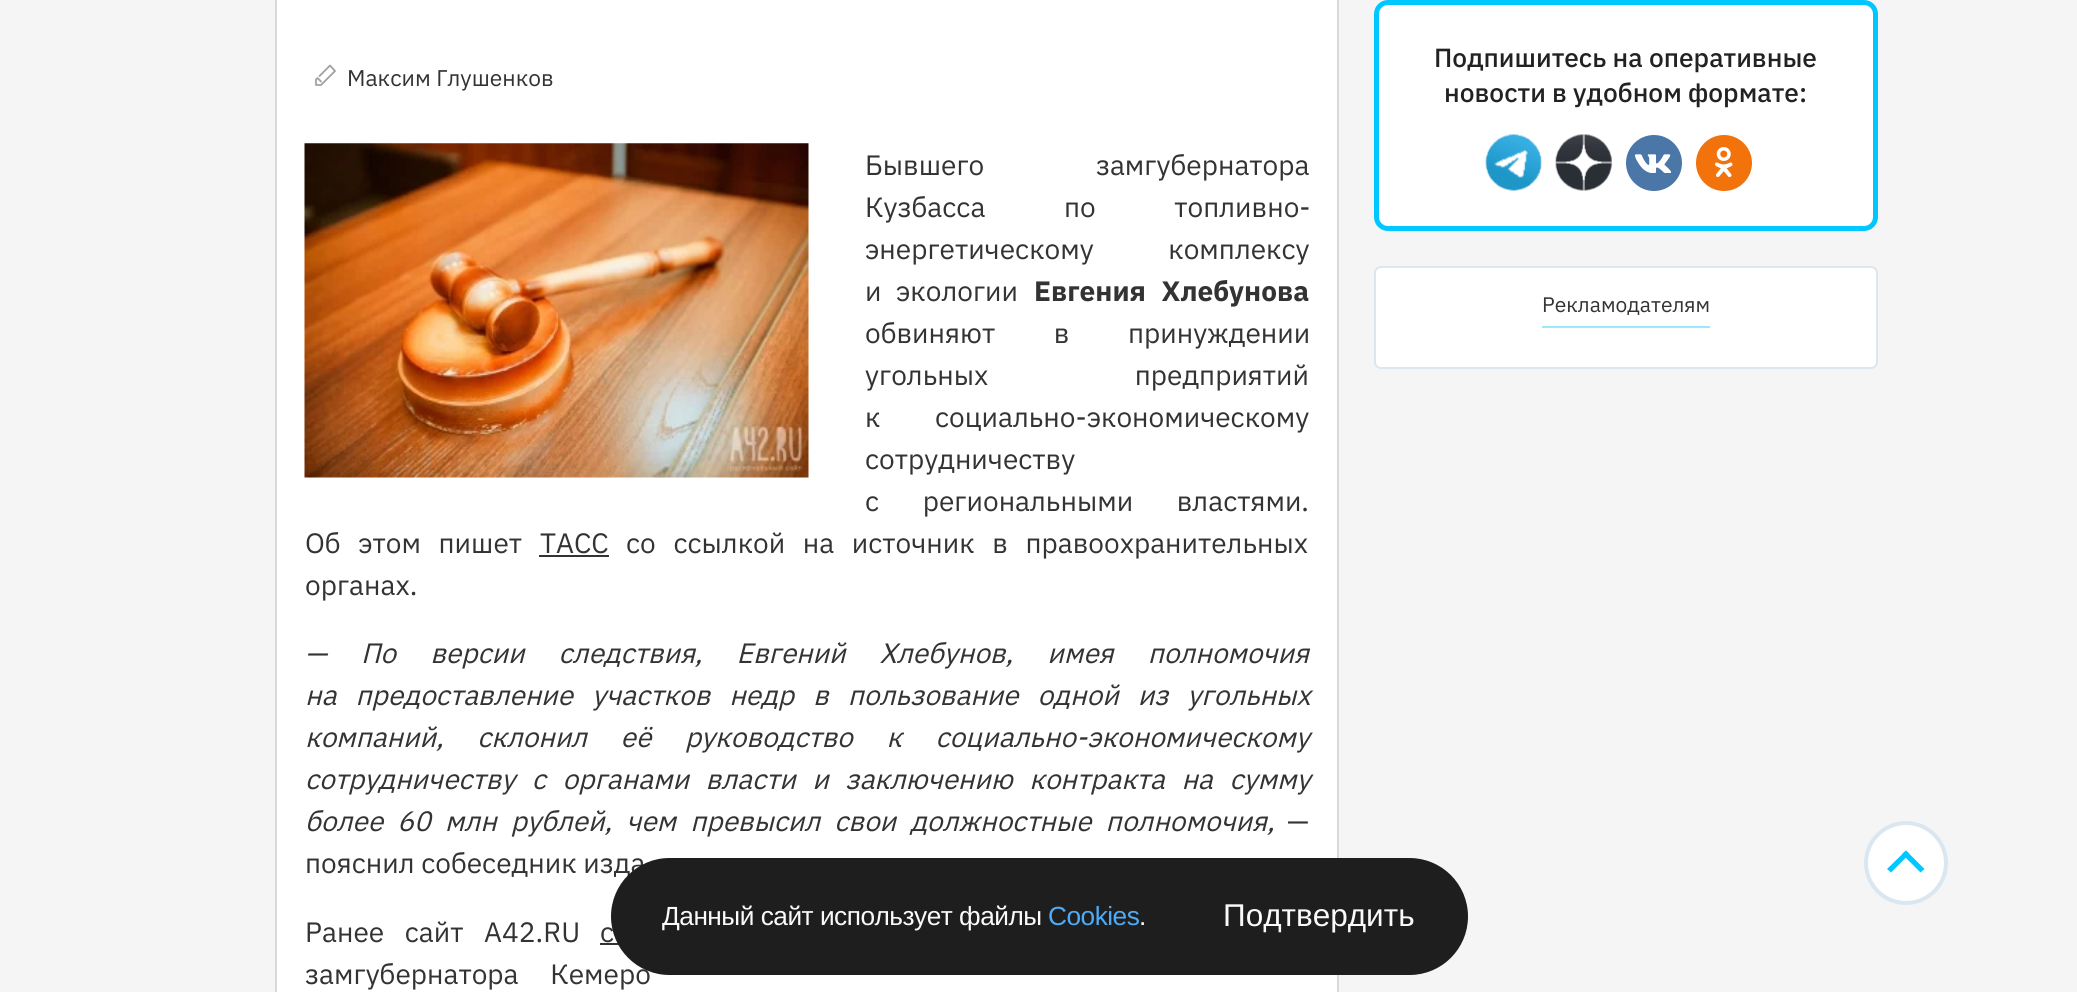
#include <cairo.h>
#include <math.h>
#include <stddef.h>


static void ink(cairo_t *ctx, unsigned color) {
    cairo_set_source_rgb(ctx, (color >> 16) / 255.0, (color >> 8 & 255) / 255.0, (color & 255) / 255.0);
}

static void write_spaced(cairo_t *ctx, double x, double y, const char *s, double letter, double word) {
    cairo_move_to(ctx, x, y);
    while (*s) {
        char ch[5] = {0};
        int n = 0;
        do ch[n++] = *s++; while ((*s & 0xC0) == 0x80);
        cairo_show_text(ctx, ch);
        cairo_rel_move_to(ctx, letter + word * (*ch == ' '), 0);
    }
}

static void round_path(cairo_t *ctx, double x, double y, double w, double h, double r) {
    cairo_new_sub_path(ctx);
    cairo_arc(ctx, x + w - r, y + h - r, r, 0, M_PI / 2);
    cairo_arc(ctx, x + r, y + h - r, r, M_PI / 2, M_PI);
    cairo_arc(ctx, x + r, y + r, r, M_PI, 1.5 * M_PI);
    cairo_arc(ctx, x + w - r, y + r, r, 1.5 * M_PI, 2 * M_PI);
    cairo_close_path(ctx);
}

static void paste(cairo_t *ctx, const char *path, double x, double y, double w, double h) {
    cairo_surface_t *image = cairo_image_surface_create_from_png(path);
    cairo_save(ctx);
    cairo_set_source_surface(ctx, image, x, y);
    cairo_rectangle(ctx, x, y, w, h);
    cairo_fill(ctx);
    cairo_restore(ctx);
    cairo_surface_destroy(image);
}

int main(void) {
    cairo_surface_t *surface = cairo_image_surface_create(CAIRO_FORMAT_RGB24, 2077, 992);
    cairo_t *ctx = cairo_create(surface);
    cairo_font_options_t *options = cairo_font_options_create();
    cairo_font_options_set_hint_metrics(options, CAIRO_HINT_METRICS_OFF);
    cairo_font_options_set_hint_style(options, CAIRO_HINT_STYLE_NONE);
    cairo_set_font_options(ctx, options);
    cairo_set_miter_limit(ctx, 4);
    ink(ctx, 0xF5F5F5);
    cairo_paint(ctx);
    ink(ctx, 0xFFFFFF);
    cairo_rectangle(ctx, 276, -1, 1062, 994);
    cairo_fill_preserve(ctx);
    ink(ctx, 0xD9D9D9);
    cairo_stroke(ctx);
    cairo_new_path(ctx);
    cairo_move_to(ctx, 319.5, 76);
    cairo_line_to(ctx, 330, 65.5);
    cairo_line_to(ctx, 335, 71);
    cairo_line_to(ctx, 321, 85);
    cairo_line_to(ctx, 316, 85);
    cairo_line_to(ctx, 316, 79.5);
    cairo_line_to(ctx, 317.5, 78);
    cairo_line_to(ctx, 321, 81.5);
    ink(ctx, 0xA1A1A1);
    cairo_set_line_width(ctx, 1.8);
    cairo_set_line_cap(ctx, CAIRO_LINE_CAP_ROUND);
    cairo_set_line_join(ctx, CAIRO_LINE_JOIN_ROUND);
    cairo_stroke(ctx);
    cairo_select_font_face(ctx, "IBM Plex Sans", CAIRO_FONT_SLANT_NORMAL, CAIRO_FONT_WEIGHT_NORMAL);
    cairo_set_font_size(ctx, 22.75);
    ink(ctx, 0x333333);
    cairo_move_to(ctx, 347, 86);
    cairo_show_text(ctx, "Максим Глушенков");
    paste(ctx, "media/1.png", 304, 143, 505, 335);
    cairo_set_font_size(ctx, 28);
    write_spaced(ctx, 865, 175, "Бывшего замгубернатора", 0, 105);
    write_spaced(ctx, 865, 217, "Кузбасса по топливно-", 0, 72);
    write_spaced(ctx, 865, 259, "энергетическому комплексу", 0, 68);
    cairo_move_to(ctx, 865, 301);
    cairo_show_text(ctx, "и");
    cairo_move_to(ctx, 896, 301);
    cairo_show_text(ctx, "экологии");
    cairo_select_font_face(ctx, "IBM Plex Sans", CAIRO_FONT_SLANT_NORMAL, CAIRO_FONT_WEIGHT_BOLD);
    write_spaced(ctx, 1034, 301, "Евгения Хлебунова", 0, 9);
    cairo_select_font_face(ctx, "IBM Plex Sans", CAIRO_FONT_SLANT_NORMAL, CAIRO_FONT_WEIGHT_NORMAL);
    write_spaced(ctx, 865, 343, "обвиняют в принуждении", 0, 52);
    write_spaced(ctx, 865, 385, "угольных предприятий", 0, 140);
    cairo_move_to(ctx, 865, 427);
    cairo_show_text(ctx, "к");
    cairo_move_to(ctx, 935, 427);
    cairo_show_text(ctx, "социально-экономическому");
    cairo_move_to(ctx, 865, 469);
    cairo_show_text(ctx, "сотрудничеству");
    write_spaced(ctx, 865, 511, "с региональными властями.", 0, 37);
    write_spaced(ctx, 305, 553, "Об этом пишет", 0, 11);
    cairo_move_to(ctx, 540, 553);
    cairo_show_text(ctx, "ТАСС");
    cairo_rectangle(ctx, 539, 555, 70, 2);
    cairo_fill(ctx);
    write_spaced(ctx, 626, 553, "со ссылкой на источник в правоохранительных", 0, 11);
    cairo_move_to(ctx, 305, 595);
    cairo_show_text(ctx, "органах.");
    cairo_select_font_face(ctx, "IBM Plex Sans", CAIRO_FONT_SLANT_ITALIC, CAIRO_FONT_WEIGHT_NORMAL);
    write_spaced(ctx, 305, 663, "— По версии следствия, Евгений Хлебунов, имея полномочия", 0, 27.5);
    write_spaced(ctx, 305, 705, "на предоставление участков недр в пользование одной из угольных", 0, 12.5);
    write_spaced(ctx, 305, 747, "компаний, склонил её руководство к социально-экономическому", 0, 27);
    write_spaced(ctx, 305, 789, "сотрудничеству с органами власти и заключению контракта на сумму", 0, 10);
    write_spaced(ctx, 305, 831, "более 60 млн рублей, чем превысил свои должностные полномочия,", 0, 7.5);
    cairo_select_font_face(ctx, "IBM Plex Sans", CAIRO_FONT_SLANT_NORMAL, CAIRO_FONT_WEIGHT_NORMAL);
    cairo_move_to(ctx, 1287, 831);
    cairo_show_text(ctx, "—");
    cairo_move_to(ctx, 305, 873);
    cairo_show_text(ctx, "пояснил собеседник изда");
    write_spaced(ctx, 305, 942, "Ранее сайт А42.RU", 0, 14);
    cairo_move_to(ctx, 600, 942);
    cairo_show_text(ctx, "с");
    cairo_rectangle(ctx, 600, 943, 19, 2);
    cairo_fill(ctx);
    write_spaced(ctx, 305, 984, "замгубернатора Кемеро", 0, 25);
    ink(ctx, 0xFFFFFF);
    round_path(ctx, 1376.5, 2.5, 499, 226, 11.5);
    cairo_fill_preserve(ctx);
    ink(ctx, 0x00C7FF);
    cairo_set_line_width(ctx, 5);
    cairo_set_line_cap(ctx, CAIRO_LINE_CAP_BUTT);
    cairo_set_line_join(ctx, CAIRO_LINE_JOIN_MITER);
    cairo_stroke(ctx);
    cairo_select_font_face(ctx, "IBM Plex Sans Medium", CAIRO_FONT_SLANT_NORMAL, CAIRO_FONT_WEIGHT_NORMAL);
    cairo_set_font_size(ctx, 26.25);
    ink(ctx, 0x222222);
    cairo_move_to(ctx, 1434, 67);
    cairo_show_text(ctx, "Подпишитесь на оперативные");
    cairo_move_to(ctx, 1444, 102);
    cairo_show_text(ctx, "новости в удобном формате:");
    paste(ctx, "media/2.png", 1485, 134, 57, 57);
    paste(ctx, "media/3.png", 1555, 134, 57, 57);
    ink(ctx, 0x4A76A8);
    cairo_arc(ctx, 1654, 163, 28, 0, 2 * M_PI);
    cairo_fill(ctx);
    paste(ctx, "media/4.png", 1635, 154, 36, 19);
    ink(ctx, 0xF2720C);
    cairo_arc(ctx, 1724, 163, 28, 0, 2 * M_PI);
    cairo_fill(ctx);
    paste(ctx, "media/5.png", 1715, 147, 18, 30);
    ink(ctx, 0xFFFFFF);
    round_path(ctx, 1375, 267, 502, 101, 6);
    cairo_fill_preserve(ctx);
    ink(ctx, 0xDAE6F0);
    cairo_set_line_width(ctx, 2);
    cairo_stroke(ctx);
    ink(ctx, 0x99E9FF);
    cairo_rectangle(ctx, 1542, 326, 168, 2);
    cairo_fill(ctx);
    cairo_select_font_face(ctx, "IBM Plex Sans", CAIRO_FONT_SLANT_NORMAL, CAIRO_FONT_WEIGHT_NORMAL);
    cairo_set_font_size(ctx, 21);
    ink(ctx, 0x333333);
    cairo_move_to(ctx, 1542, 312);
    cairo_show_text(ctx, "Рекламодателям");
    ink(ctx, 0xFFFFFF);
    cairo_new_path(ctx);
    cairo_arc(ctx, 1906, 863, 40, 0, 2 * M_PI);
    cairo_fill_preserve(ctx);
    ink(ctx, 0xDAE6F0);
    cairo_set_line_width(ctx, 4);
    cairo_stroke(ctx);
    ink(ctx, 0x00C7FF);
    cairo_new_path(ctx);
    cairo_move_to(ctx, 1891, 872.5);
    cairo_line_to(ctx, 1887, 869);
    cairo_line_to(ctx, 1906, 850.5);
    cairo_line_to(ctx, 1909.5, 854);
    cairo_close_path(ctx);
    cairo_fill(ctx);
    cairo_new_path(ctx);
    cairo_move_to(ctx, 1920.5, 872.5);
    cairo_line_to(ctx, 1902, 854);
    cairo_line_to(ctx, 1906, 850.5);
    cairo_line_to(ctx, 1924.5, 869);
    cairo_close_path(ctx);
    cairo_fill(ctx);
    ink(ctx, 0x1E1E1E);
    round_path(ctx, 611, 858, 857, 117, 58.5);
    cairo_fill(ctx);
    cairo_select_font_face(ctx, "Liberation Sans", CAIRO_FONT_SLANT_NORMAL, CAIRO_FONT_WEIGHT_NORMAL);
    cairo_set_font_size(ctx, 26.25);
    ink(ctx, 0xFAFAFA);
    write_spaced(ctx, 662, 925, "Данный сайт использует файлы", -0.5, 0);
    ink(ctx, 0x4DABF7);
    write_spaced(ctx, 1048, 925, "Cookies", -0.5, 0);
    ink(ctx, 0xFAFAFA);
    write_spaced(ctx, 1139, 925, ".", -0.5, 0);
    cairo_set_font_size(ctx, 31.5);
    cairo_move_to(ctx, 1223, 926);
    cairo_show_text(ctx, "Подтвердить");
    cairo_surface_write_to_png(surface, "image.png");
    cairo_font_options_destroy(options);
    cairo_destroy(ctx);
    cairo_surface_destroy(surface);
    return 0;
}
